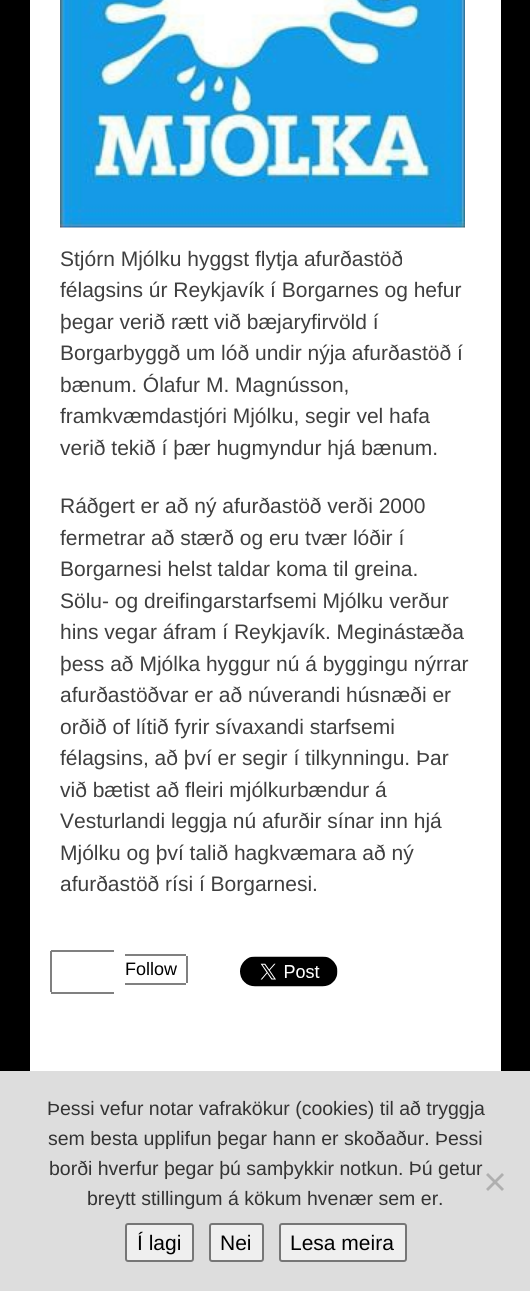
#include <cairo.h>
#include <math.h>
#include <stddef.h>

typedef struct { double x, y; const char *s; } line_t;
typedef struct { double x, y, w, h; unsigned color; } box_t;

static void ink(cairo_t *ctx, unsigned color) {
    cairo_set_source_rgb(ctx, (color >> 16) / 255.0, (color >> 8 & 255) / 255.0, (color & 255) / 255.0);
}

static void round_path(cairo_t *ctx, double x, double y, double w, double h, double r) {
    cairo_new_sub_path(ctx);
    cairo_arc(ctx, x + w - r, y + h - r, r, 0, M_PI / 2);
    cairo_arc(ctx, x + r, y + h - r, r, M_PI / 2, M_PI);
    cairo_arc(ctx, x + r, y + r, r, M_PI, 1.5 * M_PI);
    cairo_arc(ctx, x + w - r, y + r, r, 1.5 * M_PI, 2 * M_PI);
    cairo_close_path(ctx);
}

static void paste(cairo_t *ctx, const char *path, double x, double y, double w, double h) {
    cairo_surface_t *image = cairo_image_surface_create_from_png(path);
    cairo_save(ctx);
    cairo_set_source_surface(ctx, image, x, y);
    cairo_rectangle(ctx, x, y, w, h);
    cairo_fill(ctx);
    cairo_restore(ctx);
    cairo_surface_destroy(image);
}

int main(void) {
    cairo_surface_t *surface = cairo_image_surface_create(CAIRO_FORMAT_RGB24, 530, 1291);
    cairo_t *ctx = cairo_create(surface);
    cairo_font_options_t *options = cairo_font_options_create();
    cairo_font_options_set_hint_metrics(options, CAIRO_HINT_METRICS_OFF);
    cairo_font_options_set_hint_style(options, CAIRO_HINT_STYLE_NONE);
    cairo_set_font_options(ctx, options);
    cairo_set_miter_limit(ctx, 4);
    ink(ctx, 0x000000);
    cairo_paint(ctx);
    ink(ctx, 0xFFFFFF);
    cairo_rectangle(ctx, 30, 0, 471, 1071);
    cairo_fill(ctx);
    paste(ctx, "media/1.png", 60, 0, 405, 228);
    cairo_select_font_face(ctx, "Liberation Sans", CAIRO_FONT_SLANT_NORMAL, CAIRO_FONT_WEIGHT_NORMAL);
    cairo_set_font_size(ctx, 21);
    ink(ctx, 0x3F3F3F);
    {
        static const line_t items[] = {
            {60, 266, "Stjórn Mjólku hyggst flytja afurðastöð"},
            {60, 297, "félagsins úr Reykjavík í Borgarnes og hefur"},
            {60, 329, "þegar verið rætt við bæjaryfirvöld í"},
            {60, 360, "Borgarbyggð um lóð undir nýja afurðastöð í"},
            {60, 392, "bænum. Ólafur M. Magnússon,"},
            {60, 423, "framkvæmdastjóri Mjólku, segir vel hafa"},
            {60, 455, "verið tekið í þær hugmyndur hjá bænum."},
            {60, 513, "Ráðgert er að ný afurðastöð verði 2000"},
            {60, 545, "fermetrar að stærð og eru tvær lóðir í"},
            {60, 576, "Borgarnesi helst taldar koma til greina."},
            {60, 608, "Sölu- og dreifingarstarfsemi Mjólku verður"},
            {60, 639, "hins vegar áfram í Reykjavík. Meginástæða"},
            {60, 671, "þess að Mjólka hyggur nú á byggingu nýrrar"},
            {60, 702, "afurðastöðvar er að núverandi húsnæði er"},
            {60, 734, "orðið of lítið fyrir sívaxandi starfsemi"},
            {60, 765, "félagsins, að því er segir í tilkynningu. Þar"},
            {60, 797, "við bætist að fleiri mjólkurbændur á"},
            {60, 828, "Vesturlandi leggja nú afurðir sínar inn hjá"},
            {60, 860, "Mjólku og því talið hagkvæmara að ný"},
            {60, 891, "afurðastöð rísi í Borgarnesi."},
        };
        for (size_t i = 0; i < sizeof items / sizeof *items; i++) {
            cairo_move_to(ctx, items[i].x, items[i].y);
            cairo_show_text(ctx, items[i].s);
        }
    }
    cairo_set_font_size(ctx, 18);
    ink(ctx, 0x000000);
    cairo_move_to(ctx, 125, 975);
    cairo_show_text(ctx, "Follow");
    {
        static const box_t items[] = {
            {51, 950, 63, 2, 0x808080},
            {51, 992, 63, 2, 0x808080},
            {50, 951, 2, 41, 0x808080},
            {125, 954, 61, 2, 0x808080},
            {186, 956, 2, 27, 0x808080},
            {125, 983, 61, 2, 0x808080},
        };
        for (size_t i = 0; i < sizeof items / sizeof *items; i++) {
            ink(ctx, items[i].color);
            cairo_rectangle(ctx, items[i].x, items[i].y, items[i].w, items[i].h);
            cairo_fill(ctx);
        }
    }
    paste(ctx, "media/2.png", 240, 956, 98, 31);
    ink(ctx, 0xDDDDDD);
    cairo_rectangle(ctx, 0, 1071, 530, 220);
    cairo_fill(ctx);
    cairo_set_font_size(ctx, 19.5);
    ink(ctx, 0x333333);
    {
        static const line_t items[] = {
            {47, 1115, "Þessi vefur notar vafrakökur (cookies) til að tryggja"},
            {48, 1145, "sem besta upplifun þegar hann er skoðaður. Þessi"},
            {49, 1175, "borði hverfur þegar þú samþykkir notkun. Þú getur"},
            {87, 1205, "breytt stillingum á kökum hvenær sem er."},
        };
        for (size_t i = 0; i < sizeof items / sizeof *items; i++) {
            cairo_move_to(ctx, items[i].x, items[i].y);
            cairo_show_text(ctx, items[i].s);
        }
    }
    ink(ctx, 0xAFAFAF);
    cairo_new_path(ctx);
    cairo_move_to(ctx, 502, 1173);
    cairo_line_to(ctx, 504, 1175);
    cairo_line_to(ctx, 488, 1191);
    cairo_line_to(ctx, 486, 1189);
    cairo_close_path(ctx);
    cairo_fill(ctx);
    cairo_new_path(ctx);
    cairo_move_to(ctx, 486, 1175);
    cairo_line_to(ctx, 488, 1173);
    cairo_line_to(ctx, 504, 1189);
    cairo_line_to(ctx, 502, 1191);
    cairo_close_path(ctx);
    cairo_fill(ctx);
    ink(ctx, 0xEFEFEF);
    round_path(ctx, 126, 1224, 67, 37, 2);
    cairo_fill_preserve(ctx);
    ink(ctx, 0x767676);
    cairo_stroke(ctx);
    cairo_set_font_size(ctx, 21);
    ink(ctx, 0x000000);
    cairo_move_to(ctx, 137, 1250);
    cairo_show_text(ctx, "Í lagi");
    ink(ctx, 0xEFEFEF);
    round_path(ctx, 210, 1224, 53, 37, 2);
    cairo_fill_preserve(ctx);
    ink(ctx, 0x767676);
    cairo_stroke(ctx);
    ink(ctx, 0x000000);
    cairo_move_to(ctx, 220, 1250);
    cairo_show_text(ctx, "Nei");
    ink(ctx, 0xEFEFEF);
    round_path(ctx, 280, 1224, 126, 37, 2);
    cairo_fill_preserve(ctx);
    ink(ctx, 0x767676);
    cairo_stroke(ctx);
    ink(ctx, 0x000000);
    cairo_move_to(ctx, 290, 1250);
    cairo_show_text(ctx, "Lesa meira");
    cairo_surface_write_to_png(surface, "image.png");
    cairo_font_options_destroy(options);
    cairo_destroy(ctx);
    cairo_surface_destroy(surface);
    return 0;
}
